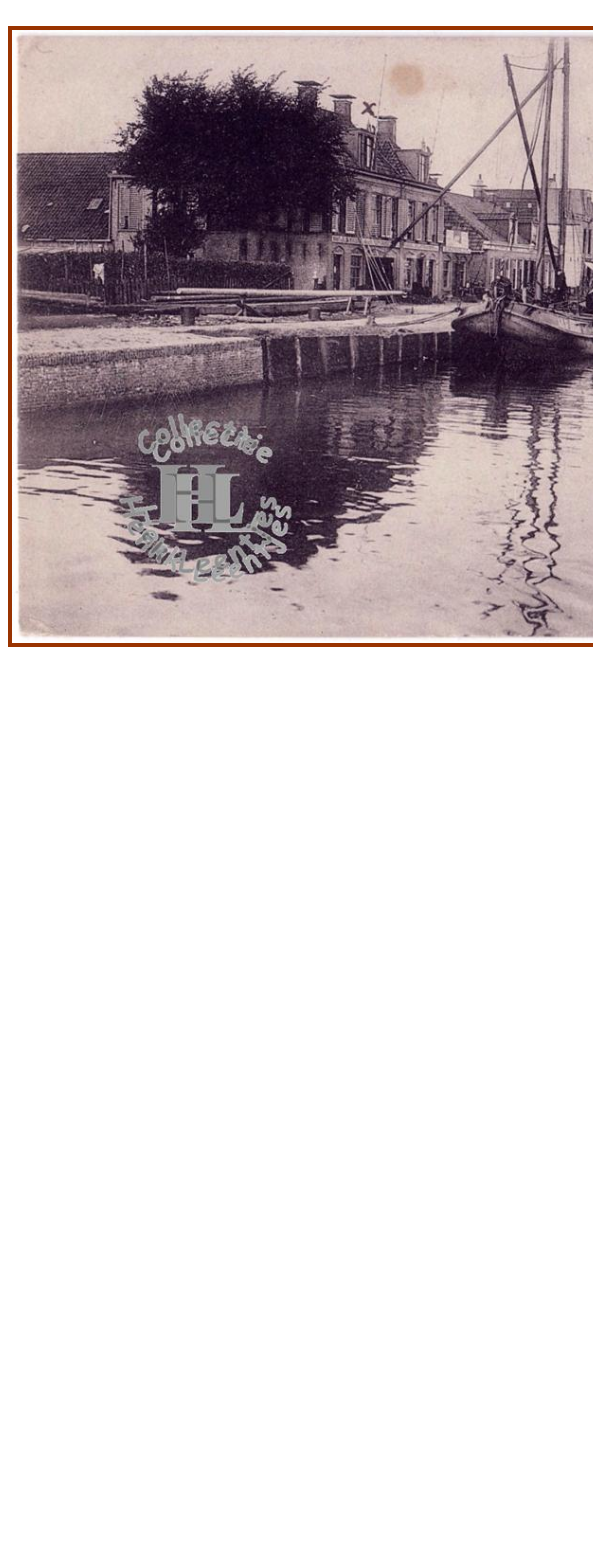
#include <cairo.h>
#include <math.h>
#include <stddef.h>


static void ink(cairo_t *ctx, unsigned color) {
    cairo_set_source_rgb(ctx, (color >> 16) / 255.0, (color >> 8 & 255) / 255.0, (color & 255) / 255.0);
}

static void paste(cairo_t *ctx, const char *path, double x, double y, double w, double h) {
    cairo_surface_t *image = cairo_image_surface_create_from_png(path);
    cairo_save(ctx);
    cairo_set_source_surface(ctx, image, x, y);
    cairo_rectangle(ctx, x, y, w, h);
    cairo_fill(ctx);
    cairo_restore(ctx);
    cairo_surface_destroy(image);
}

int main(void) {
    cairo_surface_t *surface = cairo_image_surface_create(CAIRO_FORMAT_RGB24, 593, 1549);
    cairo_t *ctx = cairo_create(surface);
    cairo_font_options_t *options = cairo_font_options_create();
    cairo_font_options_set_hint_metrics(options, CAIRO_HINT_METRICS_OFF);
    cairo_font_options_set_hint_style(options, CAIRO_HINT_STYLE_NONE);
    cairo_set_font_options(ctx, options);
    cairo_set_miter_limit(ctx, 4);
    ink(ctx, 0xFFFFFF);
    cairo_paint(ctx);
    cairo_rectangle(ctx, 10, 28, 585, 617);
    ink(ctx, 0x993300);
    cairo_set_line_width(ctx, 4);
    cairo_stroke(ctx);
    paste(ctx, "media/1.png", 12, 30, 581, 613);
    cairo_surface_write_to_png(surface, "image.png");
    cairo_font_options_destroy(options);
    cairo_destroy(ctx);
    cairo_surface_destroy(surface);
    return 0;
}
